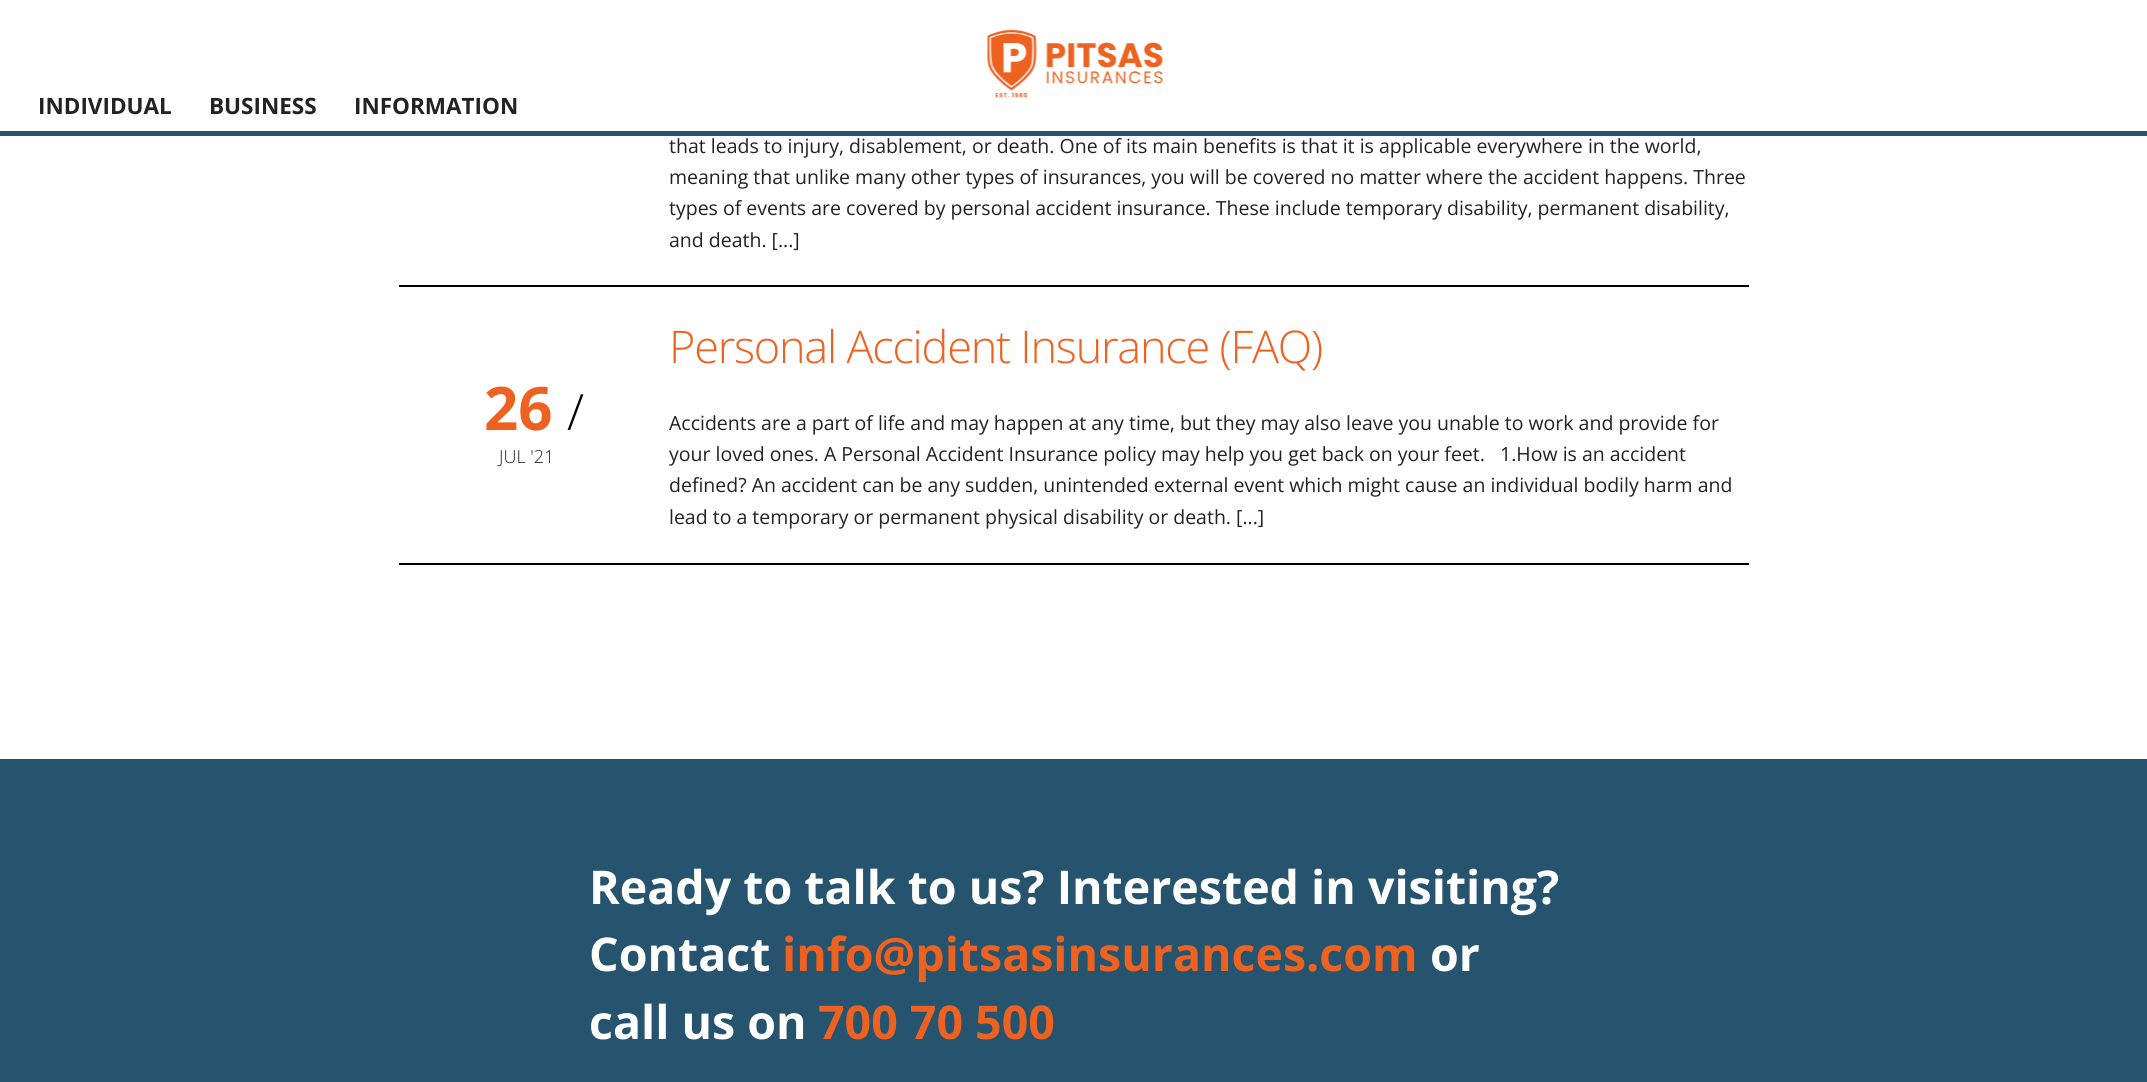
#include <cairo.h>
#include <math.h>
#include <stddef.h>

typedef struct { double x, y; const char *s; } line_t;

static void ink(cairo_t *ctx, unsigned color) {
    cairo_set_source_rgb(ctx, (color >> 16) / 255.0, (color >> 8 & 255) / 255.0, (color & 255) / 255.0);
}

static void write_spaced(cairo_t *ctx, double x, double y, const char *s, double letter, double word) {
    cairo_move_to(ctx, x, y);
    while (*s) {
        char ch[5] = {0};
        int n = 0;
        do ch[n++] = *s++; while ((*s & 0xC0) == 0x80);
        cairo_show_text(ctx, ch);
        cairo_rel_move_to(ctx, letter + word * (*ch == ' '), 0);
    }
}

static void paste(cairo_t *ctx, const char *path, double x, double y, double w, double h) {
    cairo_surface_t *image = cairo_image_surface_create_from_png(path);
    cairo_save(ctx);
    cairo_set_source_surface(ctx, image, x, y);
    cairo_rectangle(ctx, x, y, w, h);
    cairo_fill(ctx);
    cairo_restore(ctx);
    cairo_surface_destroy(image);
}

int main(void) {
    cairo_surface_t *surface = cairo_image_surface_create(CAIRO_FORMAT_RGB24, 2147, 1082);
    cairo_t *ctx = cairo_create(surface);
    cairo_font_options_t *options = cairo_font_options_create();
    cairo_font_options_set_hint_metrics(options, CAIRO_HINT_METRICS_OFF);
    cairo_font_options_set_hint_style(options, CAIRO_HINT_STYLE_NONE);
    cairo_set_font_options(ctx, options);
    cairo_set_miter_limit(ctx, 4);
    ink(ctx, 0xFFFFFF);
    cairo_paint(ctx);
    ink(ctx, 0x26536D);
    cairo_rectangle(ctx, 0, 131, 2147, 5);
    cairo_fill(ctx);
    paste(ctx, "media/1.png", 987, 30, 176, 68);
    cairo_select_font_face(ctx, "Open Sans", CAIRO_FONT_SLANT_NORMAL, CAIRO_FONT_WEIGHT_BOLD);
    cairo_set_font_size(ctx, 22.5);
    ink(ctx, 0x222222);
    {
        static const line_t items[] = {
            {38, 114, "INDIVIDUAL"},
            {209, 114, "BUSINESS"},
            {354, 114, "INFORMATION"},
        };
        for (size_t i = 0; i < sizeof items / sizeof *items; i++) {
            cairo_move_to(ctx, items[i].x, items[i].y);
            cairo_show_text(ctx, items[i].s);
        }
    }
    ink(ctx, 0x000000);
    cairo_rectangle(ctx, 399, 285, 1350, 2);
    cairo_fill(ctx);
    cairo_select_font_face(ctx, "Open Sans", CAIRO_FONT_SLANT_NORMAL, CAIRO_FONT_WEIGHT_NORMAL);
    cairo_set_font_size(ctx, 19.5);
    ink(ctx, 0x222222);
    {
        static const line_t items[] = {
            {669, 153, "that leads to injury, disablement, or death. One of its main benefits is that it is applicable everywhere in the world,"},
            {669, 184, "meaning that unlike many other types of insurances, you will be covered no matter where the accident happens. Three"},
            {669, 215, "types of events are covered by personal accident insurance. These include temporary disability, permanent disability,"},
            {669, 247, "and death. [...]"},
        };
        for (size_t i = 0; i < sizeof items / sizeof *items; i++) {
            cairo_move_to(ctx, items[i].x, items[i].y);
            cairo_show_text(ctx, items[i].s);
        }
    }
    ink(ctx, 0x000000);
    cairo_rectangle(ctx, 399, 563, 1350, 2);
    cairo_fill(ctx);
    cairo_select_font_face(ctx, "Open Sans", CAIRO_FONT_SLANT_NORMAL, CAIRO_FONT_WEIGHT_BOLD);
    cairo_set_font_size(ctx, 60);
    ink(ctx, 0xEE6221);
    cairo_move_to(ctx, 484, 430);
    cairo_show_text(ctx, "26");
    cairo_select_font_face(ctx, "Open Sans Light", CAIRO_FONT_SLANT_NORMAL, CAIRO_FONT_WEIGHT_NORMAL);
    cairo_set_font_size(ctx, 50);
    ink(ctx, 0x000000);
    cairo_move_to(ctx, 567, 430);
    cairo_show_text(ctx, "/");
    cairo_set_font_size(ctx, 18);
    ink(ctx, 0x222222);
    cairo_move_to(ctx, 499, 463);
    cairo_show_text(ctx, "JUL '21");
    cairo_set_font_size(ctx, 45);
    ink(ctx, 0xEE6221);
    write_spaced(ctx, 669, 363, "Personal Accident Insurance (FAQ)", -1.2, 0);
    cairo_select_font_face(ctx, "Open Sans", CAIRO_FONT_SLANT_NORMAL, CAIRO_FONT_WEIGHT_NORMAL);
    cairo_set_font_size(ctx, 19.5);
    ink(ctx, 0x222222);
    {
        static const line_t items[] = {
            {669, 430, "Accidents are a part of life and may happen at any time, but they may also leave you unable to work and provide for"},
            {669, 461, "your loved ones. A Personal Accident Insurance policy may help you get back on your feet.   1.How is an accident"},
            {669, 492, "defined? An accident can be any sudden, unintended external event which might cause an individual bodily harm and"},
            {669, 524, "lead to a temporary or permanent physical disability or death. [...]"},
        };
        for (size_t i = 0; i < sizeof items / sizeof *items; i++) {
            cairo_move_to(ctx, items[i].x, items[i].y);
            cairo_show_text(ctx, items[i].s);
        }
    }
    ink(ctx, 0x26536D);
    cairo_rectangle(ctx, 0, 759, 2147, 323);
    cairo_fill(ctx);
    cairo_select_font_face(ctx, "Open Sans", CAIRO_FONT_SLANT_NORMAL, CAIRO_FONT_WEIGHT_BOLD);
    cairo_set_font_size(ctx, 46.5);
    ink(ctx, 0xFFFFFF);
    cairo_move_to(ctx, 589, 904);
    cairo_show_text(ctx, "Ready to talk to us? Interested in visiting?");
    cairo_move_to(ctx, 589, 971);
    cairo_show_text(ctx, "Contact");
    ink(ctx, 0xEE6221);
    cairo_move_to(ctx, 782, 971);
    cairo_show_text(ctx, "info@pitsasinsurances.com");
    ink(ctx, 0xFFFFFF);
    cairo_move_to(ctx, 1430, 971);
    cairo_show_text(ctx, "or");
    cairo_move_to(ctx, 589, 1039);
    cairo_show_text(ctx, "call us on");
    ink(ctx, 0xEE6221);
    cairo_move_to(ctx, 818, 1039);
    cairo_show_text(ctx, "700 70 500");
    cairo_surface_write_to_png(surface, "image.png");
    cairo_font_options_destroy(options);
    cairo_destroy(ctx);
    cairo_surface_destroy(surface);
    return 0;
}
